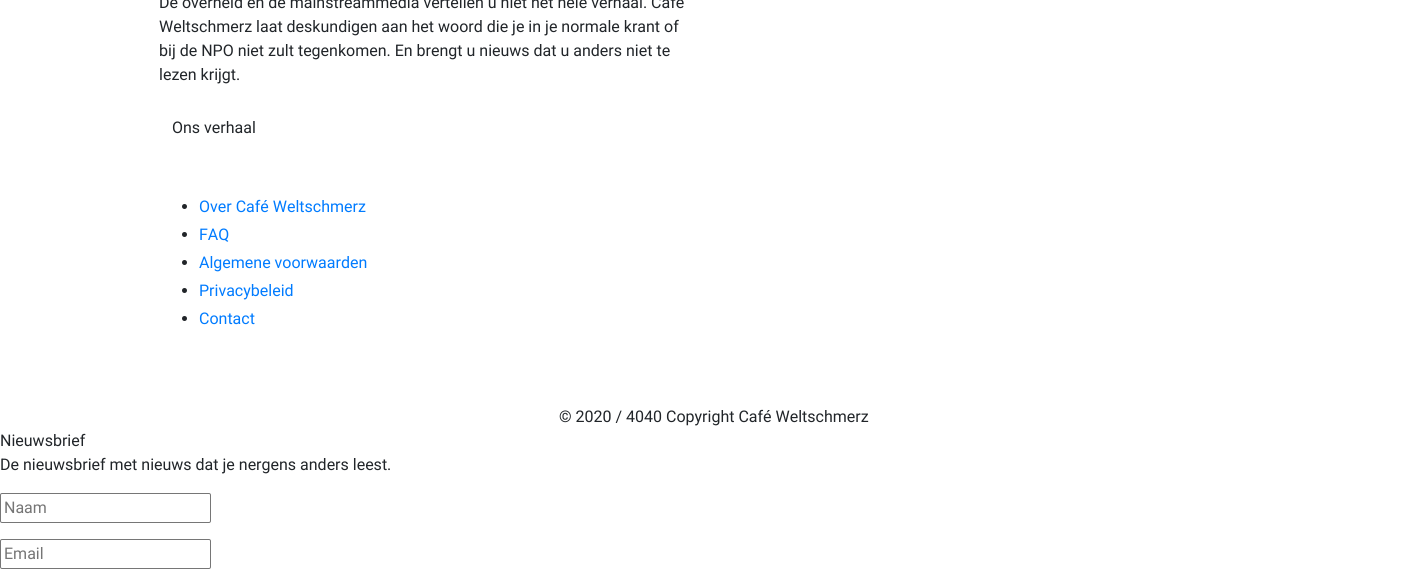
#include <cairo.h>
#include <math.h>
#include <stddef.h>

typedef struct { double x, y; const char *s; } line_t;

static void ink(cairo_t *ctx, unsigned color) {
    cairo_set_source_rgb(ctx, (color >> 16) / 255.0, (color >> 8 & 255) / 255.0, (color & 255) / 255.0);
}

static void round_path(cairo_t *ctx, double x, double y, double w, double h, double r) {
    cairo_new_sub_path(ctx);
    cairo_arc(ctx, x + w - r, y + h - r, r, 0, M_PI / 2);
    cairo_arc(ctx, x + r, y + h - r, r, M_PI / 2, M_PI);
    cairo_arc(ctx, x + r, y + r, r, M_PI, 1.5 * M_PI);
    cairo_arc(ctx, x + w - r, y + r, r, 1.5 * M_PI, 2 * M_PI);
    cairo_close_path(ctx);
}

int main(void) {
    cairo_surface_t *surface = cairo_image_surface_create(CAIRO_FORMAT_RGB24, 1428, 581);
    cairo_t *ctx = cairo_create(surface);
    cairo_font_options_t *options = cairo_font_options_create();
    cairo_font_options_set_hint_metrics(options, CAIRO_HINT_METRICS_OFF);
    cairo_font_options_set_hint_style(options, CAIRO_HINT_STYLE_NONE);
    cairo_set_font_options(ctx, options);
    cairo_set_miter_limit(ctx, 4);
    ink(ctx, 0xFFFFFF);
    cairo_paint(ctx);
    cairo_select_font_face(ctx, "Roboto", CAIRO_FONT_SLANT_NORMAL, CAIRO_FONT_WEIGHT_NORMAL);
    cairo_set_font_size(ctx, 16);
    ink(ctx, 0x212529);
    {
        static const line_t items[] = {
            {159, 8, "De overheid én de mainstreammedia vertellen u niet het hele verhaal. Café"},
            {159, 32, "Weltschmerz laat deskundigen aan het woord die je in je normale krant of"},
            {159, 56, "bij de NPO niet zult tegenkomen. En brengt u nieuws dat u anders niet te"},
            {159, 80, "lezen krijgt."},
            {172, 133, "Ons verhaal"},
        };
        for (size_t i = 0; i < sizeof items / sizeof *items; i++) {
            cairo_move_to(ctx, items[i].x, items[i].y);
            cairo_show_text(ctx, items[i].s);
        }
    }
    cairo_new_path(ctx);
    cairo_arc(ctx, 184.5, 206.5, 2.5, 0, 2 * M_PI);
    cairo_fill(ctx);
    ink(ctx, 0x007BFF);
    cairo_move_to(ctx, 199, 212);
    cairo_show_text(ctx, "Over Café Weltschmerz");
    ink(ctx, 0x212529);
    cairo_new_path(ctx);
    cairo_arc(ctx, 184.5, 234.5, 2.5, 0, 2 * M_PI);
    cairo_fill(ctx);
    ink(ctx, 0x007BFF);
    cairo_move_to(ctx, 199, 240);
    cairo_show_text(ctx, "FAQ");
    ink(ctx, 0x212529);
    cairo_new_path(ctx);
    cairo_arc(ctx, 184.5, 262.5, 2.5, 0, 2 * M_PI);
    cairo_fill(ctx);
    ink(ctx, 0x007BFF);
    cairo_move_to(ctx, 199, 268);
    cairo_show_text(ctx, "Algemene voorwaarden");
    ink(ctx, 0x212529);
    cairo_new_path(ctx);
    cairo_arc(ctx, 184.5, 290.5, 2.5, 0, 2 * M_PI);
    cairo_fill(ctx);
    ink(ctx, 0x007BFF);
    cairo_move_to(ctx, 199, 296);
    cairo_show_text(ctx, "Privacybeleid");
    ink(ctx, 0x212529);
    cairo_new_path(ctx);
    cairo_arc(ctx, 184.5, 318.5, 2.5, 0, 2 * M_PI);
    cairo_fill(ctx);
    ink(ctx, 0x007BFF);
    cairo_move_to(ctx, 199, 324);
    cairo_show_text(ctx, "Contact");
    ink(ctx, 0x212529);
    {
        static const line_t items[] = {
            {559, 422, "© 2020 / 4040 Copyright Café Weltschmerz"},
            {0, 446, "Nieuwsbrief"},
            {0, 470, "De nieuwsbrief met nieuws dat je nergens anders leest."},
        };
        for (size_t i = 0; i < sizeof items / sizeof *items; i++) {
            cairo_move_to(ctx, items[i].x, items[i].y);
            cairo_show_text(ctx, items[i].s);
        }
    }
    round_path(ctx, 0.5, 493.5, 210, 29, 1.5);
    ink(ctx, 0x767676);
    cairo_set_line_width(ctx, 1);
    cairo_stroke(ctx);
    ink(ctx, 0x757575);
    cairo_move_to(ctx, 4, 513);
    cairo_show_text(ctx, "Naam");
    round_path(ctx, 0.5, 539.5, 210, 29, 1.5);
    ink(ctx, 0x767676);
    cairo_stroke(ctx);
    ink(ctx, 0x757575);
    cairo_move_to(ctx, 4, 559);
    cairo_show_text(ctx, "Email");
    cairo_surface_write_to_png(surface, "image.png");
    cairo_font_options_destroy(options);
    cairo_destroy(ctx);
    cairo_surface_destroy(surface);
    return 0;
}
